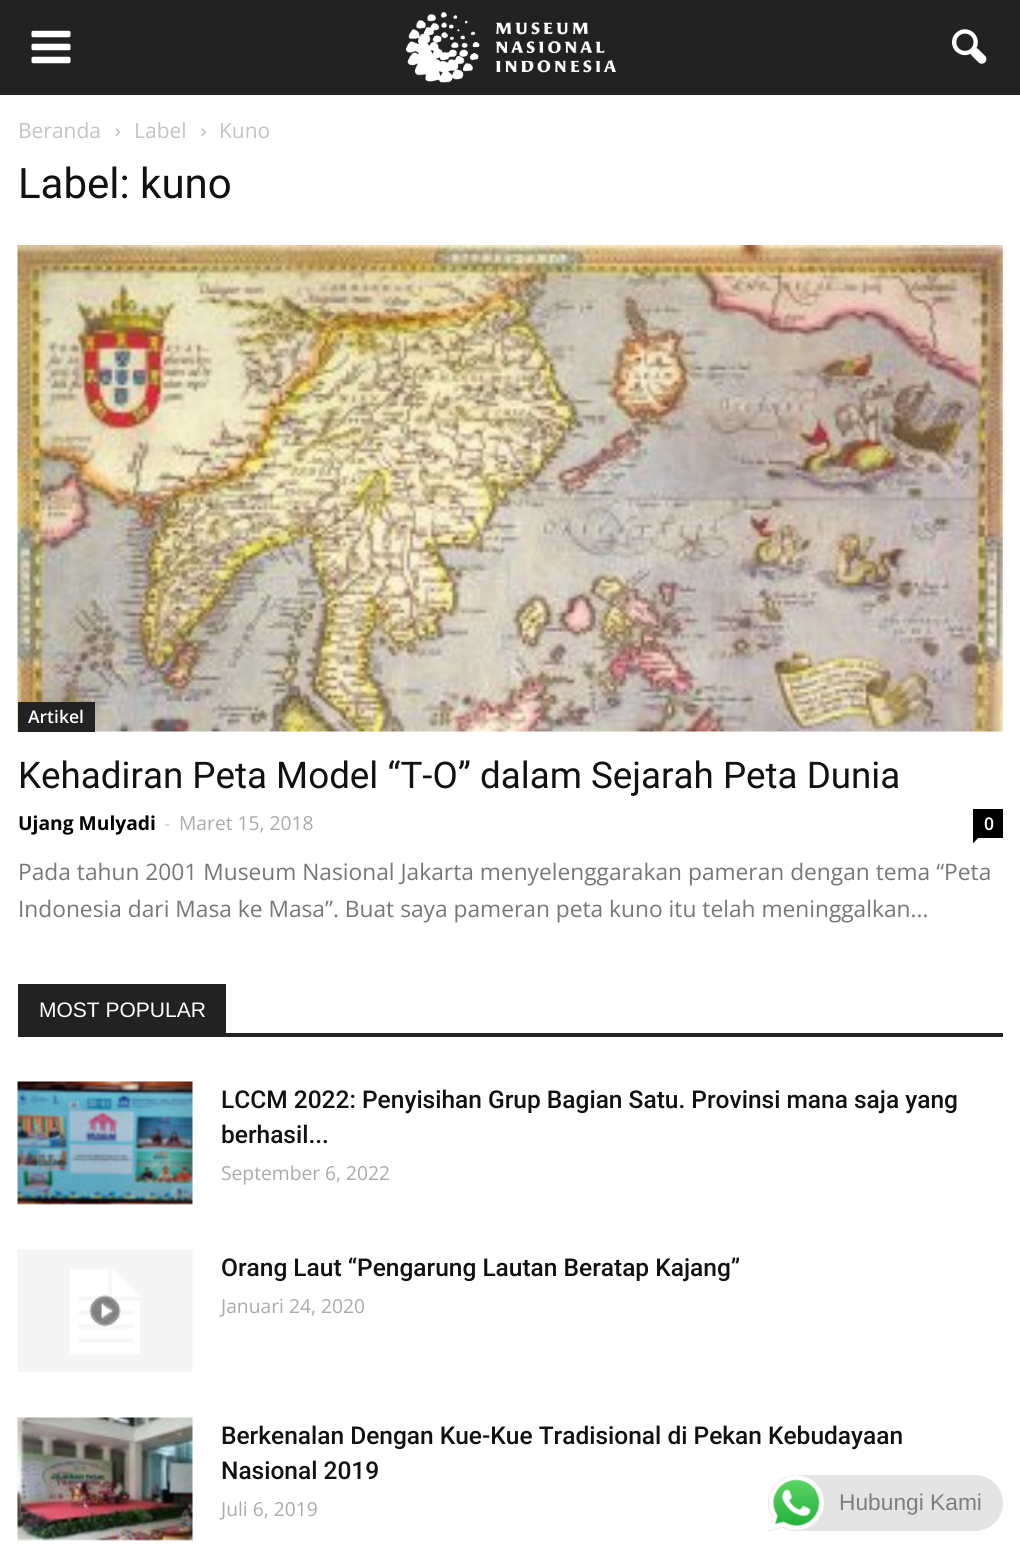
#include <cairo.h>
#include <math.h>
#include <stddef.h>


static void ink(cairo_t *ctx, unsigned color) {
    cairo_set_source_rgb(ctx, (color >> 16) / 255.0, (color >> 8 & 255) / 255.0, (color & 255) / 255.0);
}

static void round_path(cairo_t *ctx, double x, double y, double w, double h, double r) {
    cairo_new_sub_path(ctx);
    cairo_arc(ctx, x + w - r, y + h - r, r, 0, M_PI / 2);
    cairo_arc(ctx, x + r, y + h - r, r, M_PI / 2, M_PI);
    cairo_arc(ctx, x + r, y + r, r, M_PI, 1.5 * M_PI);
    cairo_arc(ctx, x + w - r, y + r, r, 1.5 * M_PI, 2 * M_PI);
    cairo_close_path(ctx);
}

static void paste(cairo_t *ctx, const char *path, double x, double y, double w, double h) {
    cairo_surface_t *image = cairo_image_surface_create_from_png(path);
    cairo_save(ctx);
    cairo_set_source_surface(ctx, image, x, y);
    cairo_rectangle(ctx, x, y, w, h);
    cairo_fill(ctx);
    cairo_restore(ctx);
    cairo_surface_destroy(image);
}

int main(void) {
    cairo_surface_t *surface = cairo_image_surface_create(CAIRO_FORMAT_RGB24, 1020, 1548);
    cairo_t *ctx = cairo_create(surface);
    cairo_font_options_t *options = cairo_font_options_create();
    cairo_font_options_set_hint_metrics(options, CAIRO_HINT_METRICS_OFF);
    cairo_font_options_set_hint_style(options, CAIRO_HINT_STYLE_NONE);
    cairo_set_font_options(ctx, options);
    cairo_set_miter_limit(ctx, 4);
    ink(ctx, 0xFFFFFF);
    cairo_paint(ctx);
    ink(ctx, 0x222222);
    cairo_rectangle(ctx, 0, 0, 1020, 95);
    cairo_fill(ctx);
    paste(ctx, "media/1.png", 31, 30, 40, 34);
    paste(ctx, "media/2.png", 406, 12, 210, 71);
    paste(ctx, "media/3.png", 952, 29, 35, 35);
    cairo_select_font_face(ctx, "Open Sans", CAIRO_FONT_SLANT_NORMAL, CAIRO_FONT_WEIGHT_NORMAL);
    cairo_set_font_size(ctx, 21);
    ink(ctx, 0xC3C3C3);
    cairo_move_to(ctx, 18, 138);
    cairo_show_text(ctx, "Beranda");
    paste(ctx, "media/4.png", 115, 128, 6, 9);
    cairo_move_to(ctx, 134, 138);
    cairo_show_text(ctx, "Label");
    paste(ctx, "media/5.png", 201, 128, 5, 9);
    cairo_move_to(ctx, 219, 138);
    cairo_show_text(ctx, "Kuno");
    cairo_select_font_face(ctx, "Roboto", CAIRO_FONT_SLANT_NORMAL, CAIRO_FONT_WEIGHT_NORMAL);
    cairo_set_font_size(ctx, 42);
    ink(ctx, 0x111111);
    cairo_move_to(ctx, 18, 198);
    cairo_show_text(ctx, "Label: kuno");
    paste(ctx, "media/6.png", 17, 245, 986, 487);
    ink(ctx, 0x222222);
    cairo_rectangle(ctx, 18, 702, 77, 30);
    cairo_fill(ctx);
    cairo_select_font_face(ctx, "Open Sans SemiBold", CAIRO_FONT_SLANT_NORMAL, CAIRO_FONT_WEIGHT_NORMAL);
    cairo_set_font_size(ctx, 17.5);
    ink(ctx, 0xFFFFFF);
    cairo_move_to(ctx, 28, 723);
    cairo_show_text(ctx, "Artikel");
    cairo_select_font_face(ctx, "Roboto", CAIRO_FONT_SLANT_NORMAL, CAIRO_FONT_WEIGHT_NORMAL);
    cairo_set_font_size(ctx, 36.75);
    ink(ctx, 0x111111);
    cairo_move_to(ctx, 18, 788);
    cairo_show_text(ctx, "Kehadiran Peta Model “T-O” dalam Sejarah Peta Dunia");
    cairo_select_font_face(ctx, "Open Sans", CAIRO_FONT_SLANT_NORMAL, CAIRO_FONT_WEIGHT_BOLD);
    cairo_set_font_size(ctx, 19.25);
    ink(ctx, 0x000000);
    cairo_move_to(ctx, 18, 830);
    cairo_show_text(ctx, "Ujang Mulyadi");
    cairo_select_font_face(ctx, "Open Sans", CAIRO_FONT_SLANT_NORMAL, CAIRO_FONT_WEIGHT_NORMAL);
    ink(ctx, 0xCCCCCC);
    cairo_move_to(ctx, 164, 830);
    cairo_show_text(ctx, "-");
    ink(ctx, 0xAAAAAA);
    cairo_move_to(ctx, 179, 830);
    cairo_show_text(ctx, "Maret 15, 2018");
    ink(ctx, 0x000000);
    cairo_rectangle(ctx, 973, 809, 30, 29);
    cairo_fill(ctx);
    cairo_select_font_face(ctx, "Open Sans SemiBold", CAIRO_FONT_SLANT_NORMAL, CAIRO_FONT_WEIGHT_NORMAL);
    cairo_set_font_size(ctx, 17.5);
    ink(ctx, 0xFFFFFF);
    cairo_move_to(ctx, 984, 830);
    cairo_show_text(ctx, "0");
    ink(ctx, 0x000000);
    cairo_new_path(ctx);
    cairo_move_to(ctx, 973, 838);
    cairo_line_to(ctx, 978, 838);
    cairo_line_to(ctx, 973, 843.5);
    cairo_close_path(ctx);
    cairo_fill(ctx);
    cairo_select_font_face(ctx, "Open Sans", CAIRO_FONT_SLANT_NORMAL, CAIRO_FONT_WEIGHT_NORMAL);
    cairo_set_font_size(ctx, 22.75);
    ink(ctx, 0x777777);
    cairo_move_to(ctx, 18, 880);
    cairo_show_text(ctx, "Pada tahun 2001 Museum Nasional Jakarta menyelenggarakan pameran dengan tema “Peta");
    cairo_move_to(ctx, 18, 917);
    cairo_show_text(ctx, "Indonesia dari Masa ke Masa”. Buat saya pameran peta kuno itu telah meninggalkan...");
    ink(ctx, 0x222222);
    cairo_rectangle(ctx, 18, 1033, 985, 4);
    cairo_fill(ctx);
    cairo_rectangle(ctx, 18, 984, 208, 49);
    cairo_fill(ctx);
    cairo_select_font_face(ctx, "Liberation Sans", CAIRO_FONT_SLANT_NORMAL, CAIRO_FONT_WEIGHT_NORMAL);
    cairo_set_font_size(ctx, 21);
    ink(ctx, 0xFFFFFF);
    cairo_move_to(ctx, 39, 1017);
    cairo_show_text(ctx, "MOST POPULAR");
    paste(ctx, "media/7.png", 17, 1081, 176, 124);
    cairo_select_font_face(ctx, "Roboto Medium", CAIRO_FONT_SLANT_NORMAL, CAIRO_FONT_WEIGHT_NORMAL);
    cairo_set_font_size(ctx, 24.5);
    ink(ctx, 0x111111);
    cairo_move_to(ctx, 221, 1108);
    cairo_show_text(ctx, "LCCM 2022: Penyisihan Grup Bagian Satu. Provinsi mana saja yang");
    cairo_move_to(ctx, 221, 1143);
    cairo_show_text(ctx, "berhasil...");
    cairo_select_font_face(ctx, "Open Sans", CAIRO_FONT_SLANT_NORMAL, CAIRO_FONT_WEIGHT_NORMAL);
    cairo_set_font_size(ctx, 19.25);
    ink(ctx, 0xAAAAAA);
    cairo_move_to(ctx, 221, 1180);
    cairo_show_text(ctx, "September 6, 2022");
    paste(ctx, "media/8.png", 17, 1249, 176, 123);
    paste(ctx, "media/9.png", 88, 1294, 34, 34);
    cairo_select_font_face(ctx, "Roboto Medium", CAIRO_FONT_SLANT_NORMAL, CAIRO_FONT_WEIGHT_NORMAL);
    cairo_set_font_size(ctx, 24.5);
    ink(ctx, 0x111111);
    cairo_move_to(ctx, 221, 1276);
    cairo_show_text(ctx, "Orang Laut “Pengarung Lautan Beratap Kajang”");
    cairo_select_font_face(ctx, "Open Sans", CAIRO_FONT_SLANT_NORMAL, CAIRO_FONT_WEIGHT_NORMAL);
    cairo_set_font_size(ctx, 19.25);
    ink(ctx, 0xAAAAAA);
    cairo_move_to(ctx, 221, 1313);
    cairo_show_text(ctx, "Januari 24, 2020");
    paste(ctx, "media/10.png", 17, 1417, 176, 124);
    cairo_select_font_face(ctx, "Roboto Medium", CAIRO_FONT_SLANT_NORMAL, CAIRO_FONT_WEIGHT_NORMAL);
    cairo_set_font_size(ctx, 24.5);
    ink(ctx, 0x111111);
    cairo_move_to(ctx, 221, 1444);
    cairo_show_text(ctx, "Berkenalan Dengan Kue-Kue Tradisional di Pekan Kebudayaan");
    cairo_move_to(ctx, 221, 1479);
    cairo_show_text(ctx, "Nasional 2019");
    cairo_select_font_face(ctx, "Open Sans", CAIRO_FONT_SLANT_NORMAL, CAIRO_FONT_WEIGHT_NORMAL);
    cairo_set_font_size(ctx, 19.25);
    ink(ctx, 0xAAAAAA);
    cairo_move_to(ctx, 221, 1516);
    cairo_show_text(ctx, "Juli 6, 2019");
    ink(ctx, 0xE4E4E4);
    round_path(ctx, 768, 1475, 235, 56, 28);
    cairo_fill(ctx);
    paste(ctx, "media/11.png", 768, 1475, 56, 57);
    cairo_select_font_face(ctx, "Liberation Sans", CAIRO_FONT_SLANT_NORMAL, CAIRO_FONT_WEIGHT_NORMAL);
    cairo_set_font_size(ctx, 22.75);
    ink(ctx, 0x7F7D7D);
    cairo_move_to(ctx, 839, 1510);
    cairo_show_text(ctx, "Hubungi Kami");
    cairo_surface_write_to_png(surface, "image.png");
    cairo_font_options_destroy(options);
    cairo_destroy(ctx);
    cairo_surface_destroy(surface);
    return 0;
}
